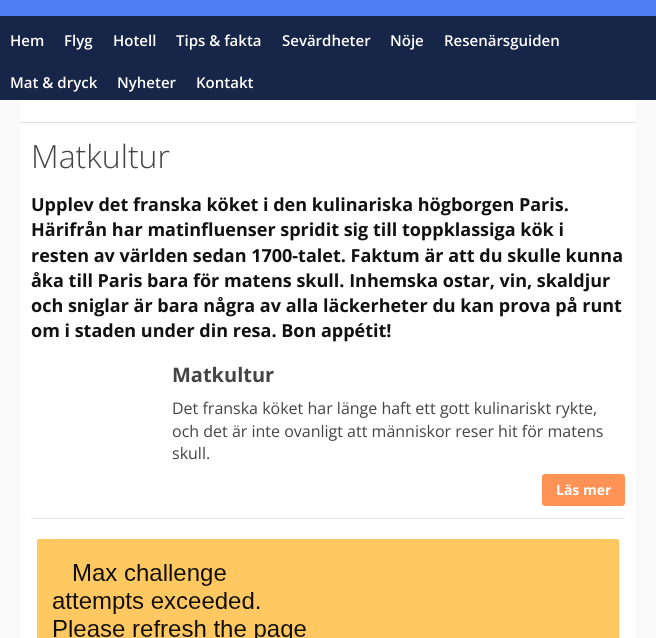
#include <cairo.h>
#include <math.h>
#include <stddef.h>

typedef struct { double x, y; const char *s; } line_t;
typedef struct { double x, y, w, h; unsigned color; } box_t;

static void ink(cairo_t *ctx, unsigned color) {
    cairo_set_source_rgb(ctx, (color >> 16) / 255.0, (color >> 8 & 255) / 255.0, (color & 255) / 255.0);
}

static void round_path(cairo_t *ctx, double x, double y, double w, double h, double r) {
    cairo_new_sub_path(ctx);
    cairo_arc(ctx, x + w - r, y + h - r, r, 0, M_PI / 2);
    cairo_arc(ctx, x + r, y + h - r, r, M_PI / 2, M_PI);
    cairo_arc(ctx, x + r, y + r, r, M_PI, 1.5 * M_PI);
    cairo_arc(ctx, x + w - r, y + r, r, 1.5 * M_PI, 2 * M_PI);
    cairo_close_path(ctx);
}

static void paste(cairo_t *ctx, const char *path, double x, double y, double w, double h) {
    cairo_surface_t *image = cairo_image_surface_create_from_png(path);
    cairo_save(ctx);
    cairo_set_source_surface(ctx, image, x, y);
    cairo_rectangle(ctx, x, y, w, h);
    cairo_fill(ctx);
    cairo_restore(ctx);
    cairo_surface_destroy(image);
}

int main(void) {
    cairo_surface_t *surface = cairo_image_surface_create(CAIRO_FORMAT_RGB24, 656, 638);
    cairo_t *ctx = cairo_create(surface);
    cairo_font_options_t *options = cairo_font_options_create();
    cairo_font_options_set_hint_metrics(options, CAIRO_HINT_METRICS_OFF);
    cairo_font_options_set_hint_style(options, CAIRO_HINT_STYLE_NONE);
    cairo_set_font_options(ctx, options);
    cairo_set_miter_limit(ctx, 4);
    ink(ctx, 0xFAFAFA);
    cairo_paint(ctx);
    ink(ctx, 0x4D7DF0);
    cairo_rectangle(ctx, 0, 0, 656, 16);
    cairo_fill(ctx);
    ink(ctx, 0x172648);
    cairo_rectangle(ctx, 0, 16, 656, 84);
    cairo_fill(ctx);
    cairo_select_font_face(ctx, "Open Sans SemiBold", CAIRO_FONT_SLANT_NORMAL, CAIRO_FONT_WEIGHT_NORMAL);
    cairo_set_font_size(ctx, 15);
    ink(ctx, 0xFFFFFF);
    {
        static const line_t items[] = {
            {10, 46, "Hem"},
            {64, 46, "Flyg"},
            {113, 46, "Hotell"},
            {176, 46, "Tips & fakta"},
            {282, 46, "Sevärdheter"},
            {390, 46, "Nöje"},
            {444, 46, "Resenärsguiden"},
            {10, 88, "Mat & dryck"},
            {117, 88, "Nyheter"},
            {196, 88, "Kontakt"},
        };
        for (size_t i = 0; i < sizeof items / sizeof *items; i++) {
            cairo_move_to(ctx, items[i].x, items[i].y);
            cairo_show_text(ctx, items[i].s);
        }
    }
    {
        static const box_t items[] = {
            {20, 100, 616, 22, 0xFFFFFF},
            {20, 123, 616, 515, 0xFFFFFF},
            {20, 122, 616, 1, 0xDEDEDE},
        };
        for (size_t i = 0; i < sizeof items / sizeof *items; i++) {
            ink(ctx, items[i].color);
            cairo_rectangle(ctx, items[i].x, items[i].y, items[i].w, items[i].h);
            cairo_fill(ctx);
        }
    }
    cairo_select_font_face(ctx, "Open Sans Light", CAIRO_FONT_SLANT_NORMAL, CAIRO_FONT_WEIGHT_NORMAL);
    cairo_set_font_size(ctx, 32);
    ink(ctx, 0x444444);
    cairo_move_to(ctx, 31, 168);
    cairo_show_text(ctx, "Matkultur");
    cairo_select_font_face(ctx, "Open Sans", CAIRO_FONT_SLANT_NORMAL, CAIRO_FONT_WEIGHT_BOLD);
    cairo_set_font_size(ctx, 18);
    ink(ctx, 0x111111);
    {
        static const line_t items[] = {
            {31, 211, "Upplev det franska köket i den kulinariska högborgen Paris."},
            {31, 236, "Härifrån har matinfluenser spridit sig till toppklassiga kök i"},
            {31, 262, "resten av världen sedan 1700-talet. Faktum är att du skulle kunna"},
            {31, 287, "åka till Paris bara för matens skull. Inhemska ostar, vin, skaldjur"},
            {31, 312, "och sniglar är bara några av alla läckerheter du kan prova på runt"},
            {31, 337, "om i staden under din resa. Bon appétit!"},
        };
        for (size_t i = 0; i < sizeof items / sizeof *items; i++) {
            cairo_move_to(ctx, items[i].x, items[i].y);
            cairo_show_text(ctx, items[i].s);
        }
    }
    ink(ctx, 0xE8E8E8);
    cairo_rectangle(ctx, 31, 518, 594, 1);
    cairo_fill(ctx);
    cairo_set_font_size(ctx, 20);
    ink(ctx, 0x444444);
    cairo_move_to(ctx, 172, 382);
    cairo_show_text(ctx, "Matkultur");
    cairo_select_font_face(ctx, "Open Sans", CAIRO_FONT_SLANT_NORMAL, CAIRO_FONT_WEIGHT_NORMAL);
    cairo_set_font_size(ctx, 16);
    {
        static const line_t items[] = {
            {172, 414, "Det franska köket har länge haft ett gott kulinariskt rykte,"},
            {172, 437, "och det är inte ovanligt att människor reser hit för matens"},
            {172, 459, "skull."},
        };
        for (size_t i = 0; i < sizeof items / sizeof *items; i++) {
            cairo_move_to(ctx, items[i].x, items[i].y);
            cairo_show_text(ctx, items[i].s);
        }
    }
    ink(ctx, 0xFF9254);
    round_path(ctx, 542, 474, 83, 32, 3);
    cairo_fill(ctx);
    cairo_select_font_face(ctx, "Open Sans", CAIRO_FONT_SLANT_NORMAL, CAIRO_FONT_WEIGHT_BOLD);
    cairo_set_font_size(ctx, 14);
    ink(ctx, 0xFFFFFF);
    cairo_move_to(ctx, 556, 495);
    cairo_show_text(ctx, "Läs mer");
    ink(ctx, 0xFFC861);
    round_path(ctx, 37, 539, 582, 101, 2);
    cairo_fill(ctx);
    paste(ctx, "media/1.png", 53, 564, 253, 74);
    cairo_surface_write_to_png(surface, "image.png");
    cairo_font_options_destroy(options);
    cairo_destroy(ctx);
    cairo_surface_destroy(surface);
    return 0;
}
